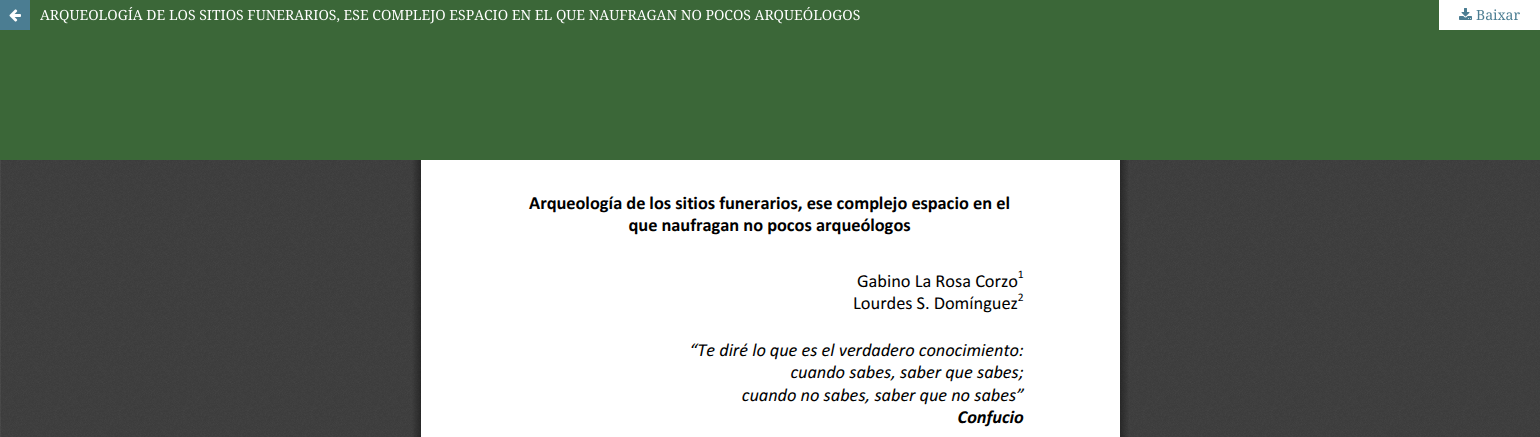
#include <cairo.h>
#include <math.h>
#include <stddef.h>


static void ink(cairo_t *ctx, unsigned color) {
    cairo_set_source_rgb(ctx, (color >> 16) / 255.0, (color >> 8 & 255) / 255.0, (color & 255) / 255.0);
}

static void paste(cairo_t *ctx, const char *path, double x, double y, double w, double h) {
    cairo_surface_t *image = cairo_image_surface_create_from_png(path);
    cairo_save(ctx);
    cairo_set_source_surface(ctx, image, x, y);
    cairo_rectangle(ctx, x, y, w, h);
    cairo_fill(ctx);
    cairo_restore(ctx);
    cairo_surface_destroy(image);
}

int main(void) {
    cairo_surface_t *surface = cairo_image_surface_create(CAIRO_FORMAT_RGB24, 1540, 437);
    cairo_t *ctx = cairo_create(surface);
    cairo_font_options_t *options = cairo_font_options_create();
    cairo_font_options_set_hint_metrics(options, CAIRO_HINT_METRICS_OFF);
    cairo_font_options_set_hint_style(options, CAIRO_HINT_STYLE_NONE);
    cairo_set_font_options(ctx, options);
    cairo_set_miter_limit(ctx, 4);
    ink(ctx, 0xFFFFFF);
    cairo_paint(ctx);
    ink(ctx, 0x3B6738);
    cairo_rectangle(ctx, 0, 0, 1540, 160);
    cairo_fill(ctx);
    ink(ctx, 0x4B7D92);
    cairo_rectangle(ctx, 0, 0, 30, 30);
    cairo_fill(ctx);
    paste(ctx, "media/1.png", 9, 9, 12, 13);
    cairo_select_font_face(ctx, "Noto Serif", CAIRO_FONT_SLANT_NORMAL, CAIRO_FONT_WEIGHT_NORMAL);
    cairo_set_font_size(ctx, 14);
    ink(ctx, 0xFFFFFF);
    cairo_move_to(ctx, 40, 20);
    cairo_show_text(ctx, "ARQUEOLOGÍA DE LOS SITIOS FUNERARIOS, ESE COMPLEJO ESPACIO EN EL QUE NAUFRAGAN NO POCOS ARQUEÓLOGOS");
    cairo_rectangle(ctx, 1439, 0, 101, 30);
    cairo_fill(ctx);
    paste(ctx, "media/2.png", 1459, 8, 13, 12);
    ink(ctx, 0x4B7D92);
    cairo_move_to(ctx, 1476, 20);
    cairo_show_text(ctx, "Baixar");
    paste(ctx, "media/3.png", 0, 160, 1540, 277);
    cairo_surface_write_to_png(surface, "image.png");
    cairo_font_options_destroy(options);
    cairo_destroy(ctx);
    cairo_surface_destroy(surface);
    return 0;
}
